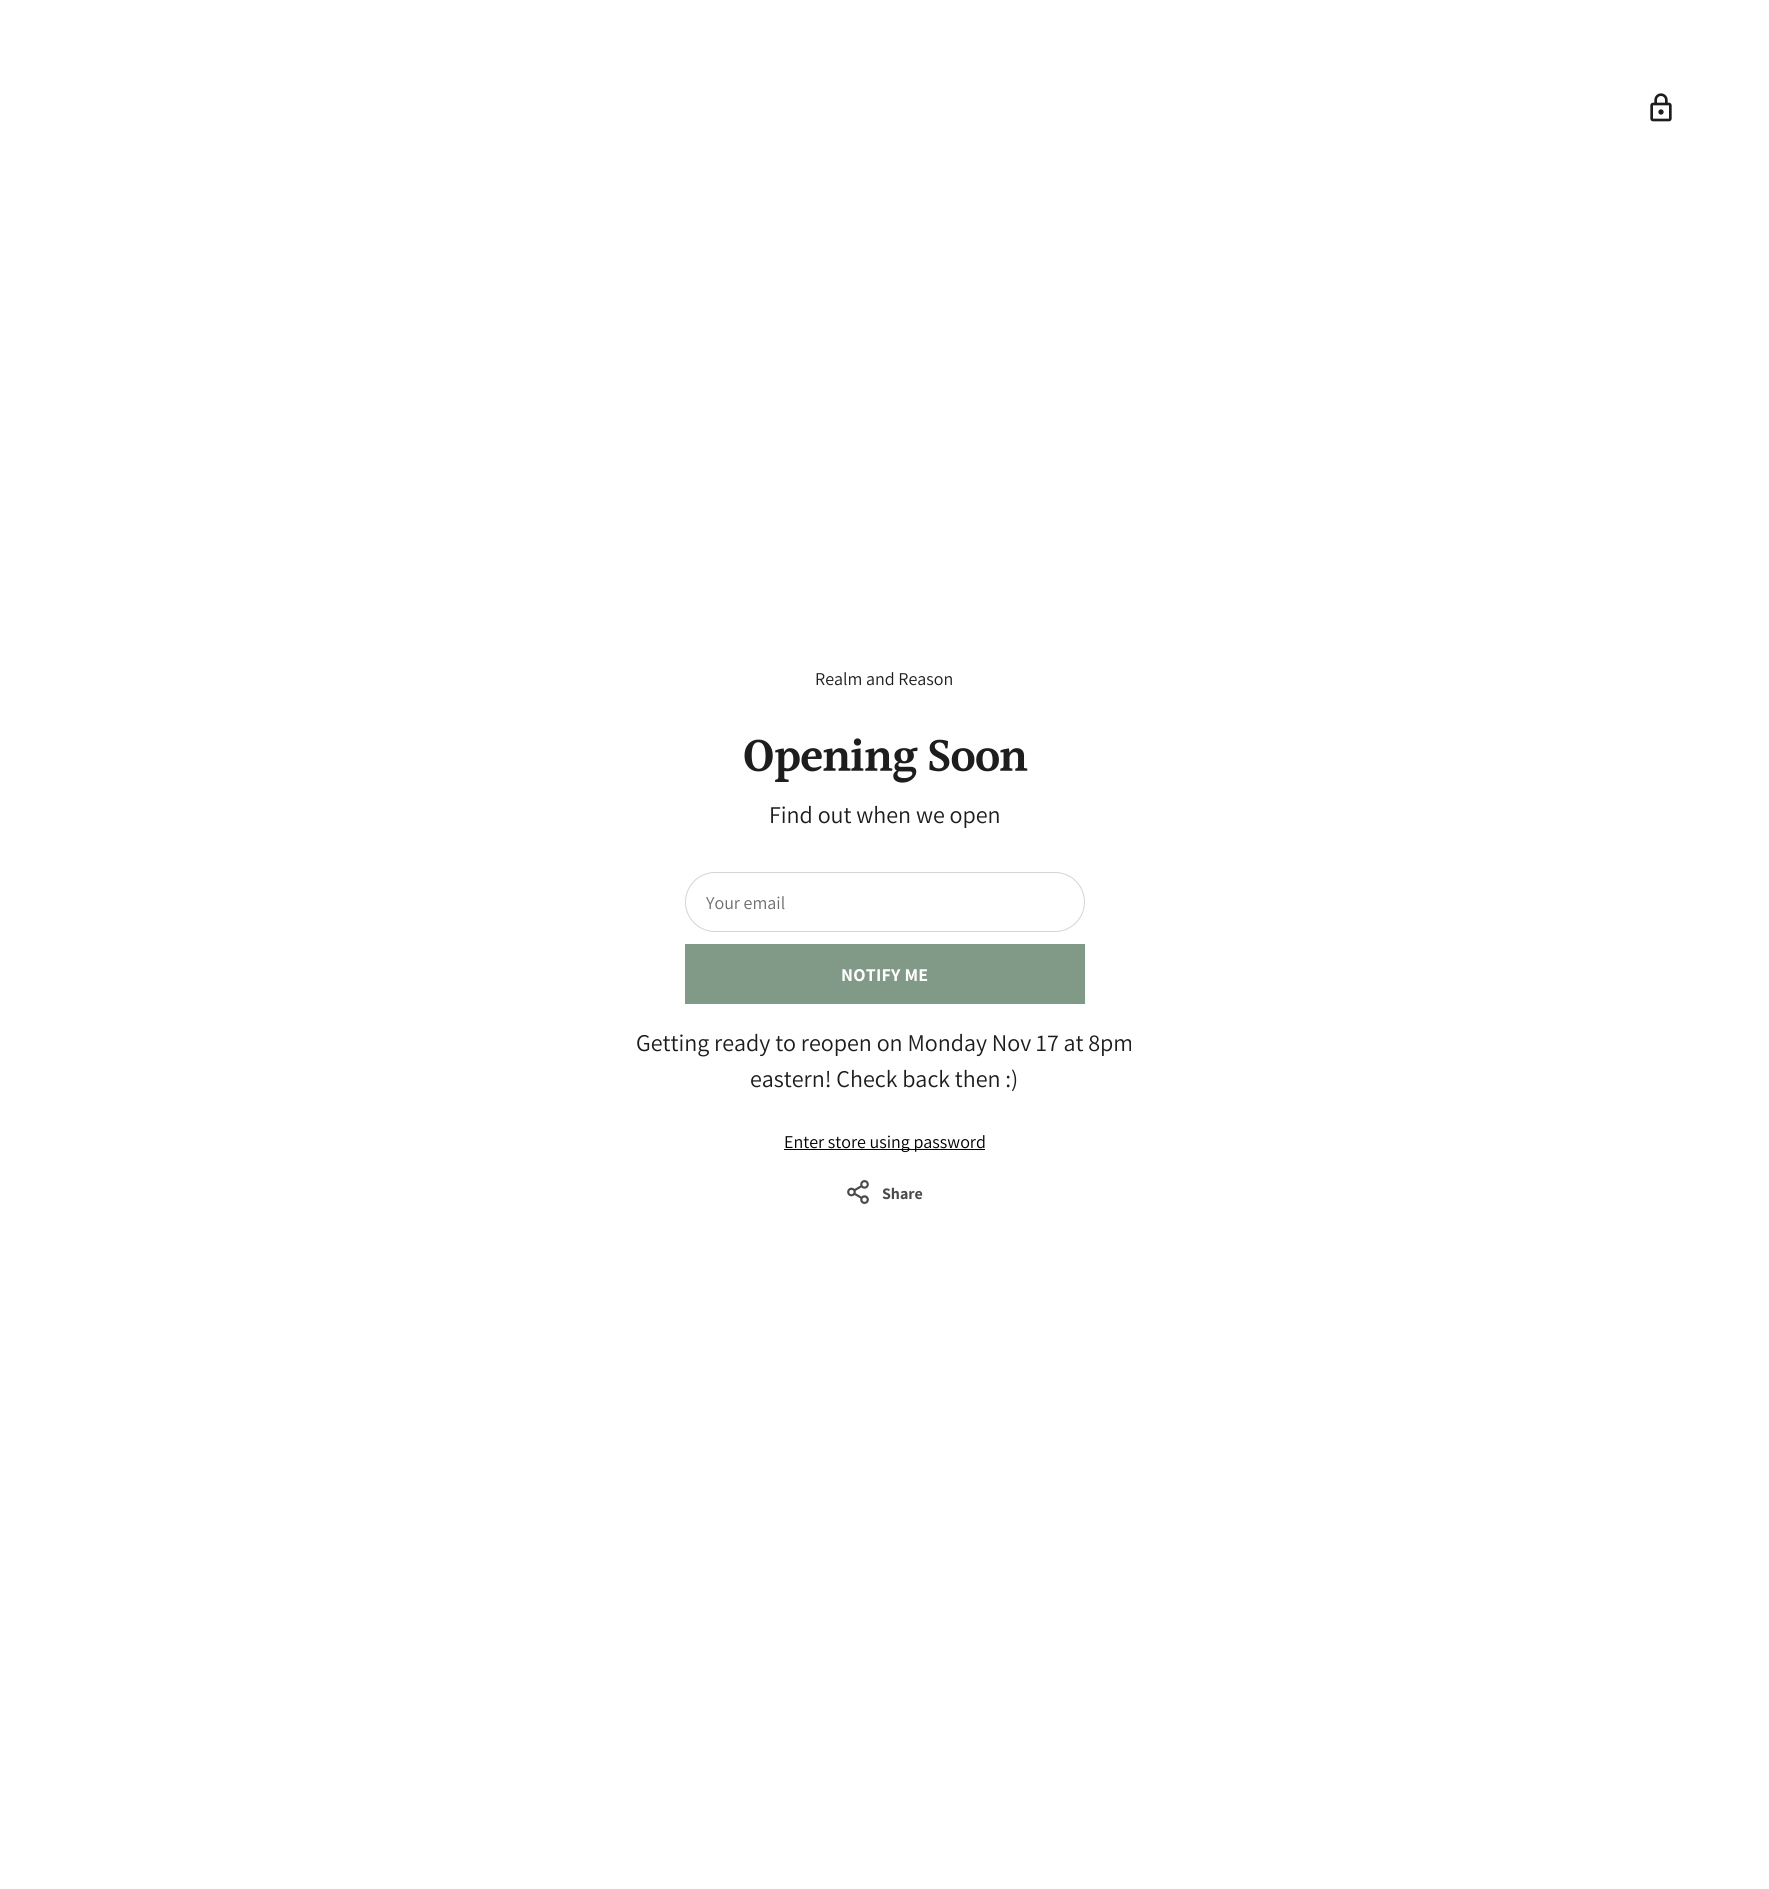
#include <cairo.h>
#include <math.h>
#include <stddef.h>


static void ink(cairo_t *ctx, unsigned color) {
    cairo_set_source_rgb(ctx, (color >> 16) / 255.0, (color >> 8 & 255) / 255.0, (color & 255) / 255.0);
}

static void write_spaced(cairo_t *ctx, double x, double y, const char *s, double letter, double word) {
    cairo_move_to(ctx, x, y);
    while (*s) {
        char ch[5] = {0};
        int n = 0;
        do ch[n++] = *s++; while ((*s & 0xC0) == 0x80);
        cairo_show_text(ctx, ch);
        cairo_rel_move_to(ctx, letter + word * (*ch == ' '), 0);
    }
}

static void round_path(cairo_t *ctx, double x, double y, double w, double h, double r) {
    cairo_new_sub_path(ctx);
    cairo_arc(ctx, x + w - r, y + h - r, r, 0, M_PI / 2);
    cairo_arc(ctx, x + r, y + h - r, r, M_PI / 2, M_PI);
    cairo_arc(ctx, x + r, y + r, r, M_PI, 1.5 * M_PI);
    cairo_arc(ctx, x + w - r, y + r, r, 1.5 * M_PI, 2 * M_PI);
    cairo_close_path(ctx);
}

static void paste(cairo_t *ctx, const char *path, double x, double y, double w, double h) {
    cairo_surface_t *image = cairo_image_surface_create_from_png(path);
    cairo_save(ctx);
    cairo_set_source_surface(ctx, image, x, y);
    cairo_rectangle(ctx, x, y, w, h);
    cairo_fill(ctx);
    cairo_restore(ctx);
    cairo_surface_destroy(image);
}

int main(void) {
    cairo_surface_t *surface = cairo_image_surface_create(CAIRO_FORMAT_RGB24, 1769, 1889);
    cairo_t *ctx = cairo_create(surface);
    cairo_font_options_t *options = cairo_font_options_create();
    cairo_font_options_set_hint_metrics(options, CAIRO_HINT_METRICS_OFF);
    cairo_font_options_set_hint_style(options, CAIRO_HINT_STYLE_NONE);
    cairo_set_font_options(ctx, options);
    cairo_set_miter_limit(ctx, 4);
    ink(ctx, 0xFFFFFF);
    cairo_paint(ctx);
    paste(ctx, "media/1.png", 1650, 93, 22, 29);
    cairo_select_font_face(ctx, "Assistant", CAIRO_FONT_SLANT_NORMAL, CAIRO_FONT_WEIGHT_NORMAL);
    cairo_set_font_size(ctx, 18);
    ink(ctx, 0x1D1D1D);
    cairo_move_to(ctx, 815, 685);
    cairo_show_text(ctx, "Realm and Reason");
    cairo_select_font_face(ctx, "Halant SemiBold", CAIRO_FONT_SLANT_NORMAL, CAIRO_FONT_WEIGHT_NORMAL);
    cairo_set_font_size(ctx, 48);
    write_spaced(ctx, 742, 773, "Opening Soon", -1.25, 0);
    cairo_select_font_face(ctx, "Assistant", CAIRO_FONT_SLANT_NORMAL, CAIRO_FONT_WEIGHT_NORMAL);
    cairo_set_font_size(ctx, 24);
    cairo_move_to(ctx, 769, 823);
    cairo_show_text(ctx, "Find out when we open");
    round_path(ctx, 685.5, 872.5, 399, 59, 29.5);
    ink(ctx, 0xD4D4D4);
    cairo_set_line_width(ctx, 1);
    cairo_stroke(ctx);
    cairo_set_font_size(ctx, 18);
    ink(ctx, 0x6C6C6C);
    cairo_move_to(ctx, 706, 909);
    cairo_show_text(ctx, "Your email");
    ink(ctx, 0x819A88);
    cairo_rectangle(ctx, 685, 944, 400, 60);
    cairo_fill(ctx);
    cairo_select_font_face(ctx, "Assistant", CAIRO_FONT_SLANT_NORMAL, CAIRO_FONT_WEIGHT_BOLD);
    ink(ctx, 0xFFFFFF);
    write_spaced(ctx, 841, 981, "NOTIFY ME", 0.25, 0);
    cairo_select_font_face(ctx, "Assistant", CAIRO_FONT_SLANT_NORMAL, CAIRO_FONT_WEIGHT_NORMAL);
    cairo_set_font_size(ctx, 24);
    ink(ctx, 0x1D1D1D);
    cairo_move_to(ctx, 636, 1051);
    cairo_show_text(ctx, "Getting ready to reopen on Monday Nov 17 at 8pm");
    cairo_move_to(ctx, 750, 1087);
    cairo_show_text(ctx, "eastern! Check back then :)");
    ink(ctx, 0x000000);
    cairo_rectangle(ctx, 784, 1149, 201, 1);
    cairo_fill(ctx);
    cairo_set_font_size(ctx, 18);
    cairo_move_to(ctx, 784, 1148);
    cairo_show_text(ctx, "Enter store using password");
    paste(ctx, "media/2.png", 847, 1180, 22, 24);
    cairo_select_font_face(ctx, "Assistant", CAIRO_FONT_SLANT_NORMAL, CAIRO_FONT_WEIGHT_BOLD);
    cairo_set_font_size(ctx, 16);
    ink(ctx, 0x4A4A4A);
    cairo_move_to(ctx, 882, 1199);
    cairo_show_text(ctx, "Share");
    cairo_surface_write_to_png(surface, "image.png");
    cairo_font_options_destroy(options);
    cairo_destroy(ctx);
    cairo_surface_destroy(surface);
    return 0;
}
